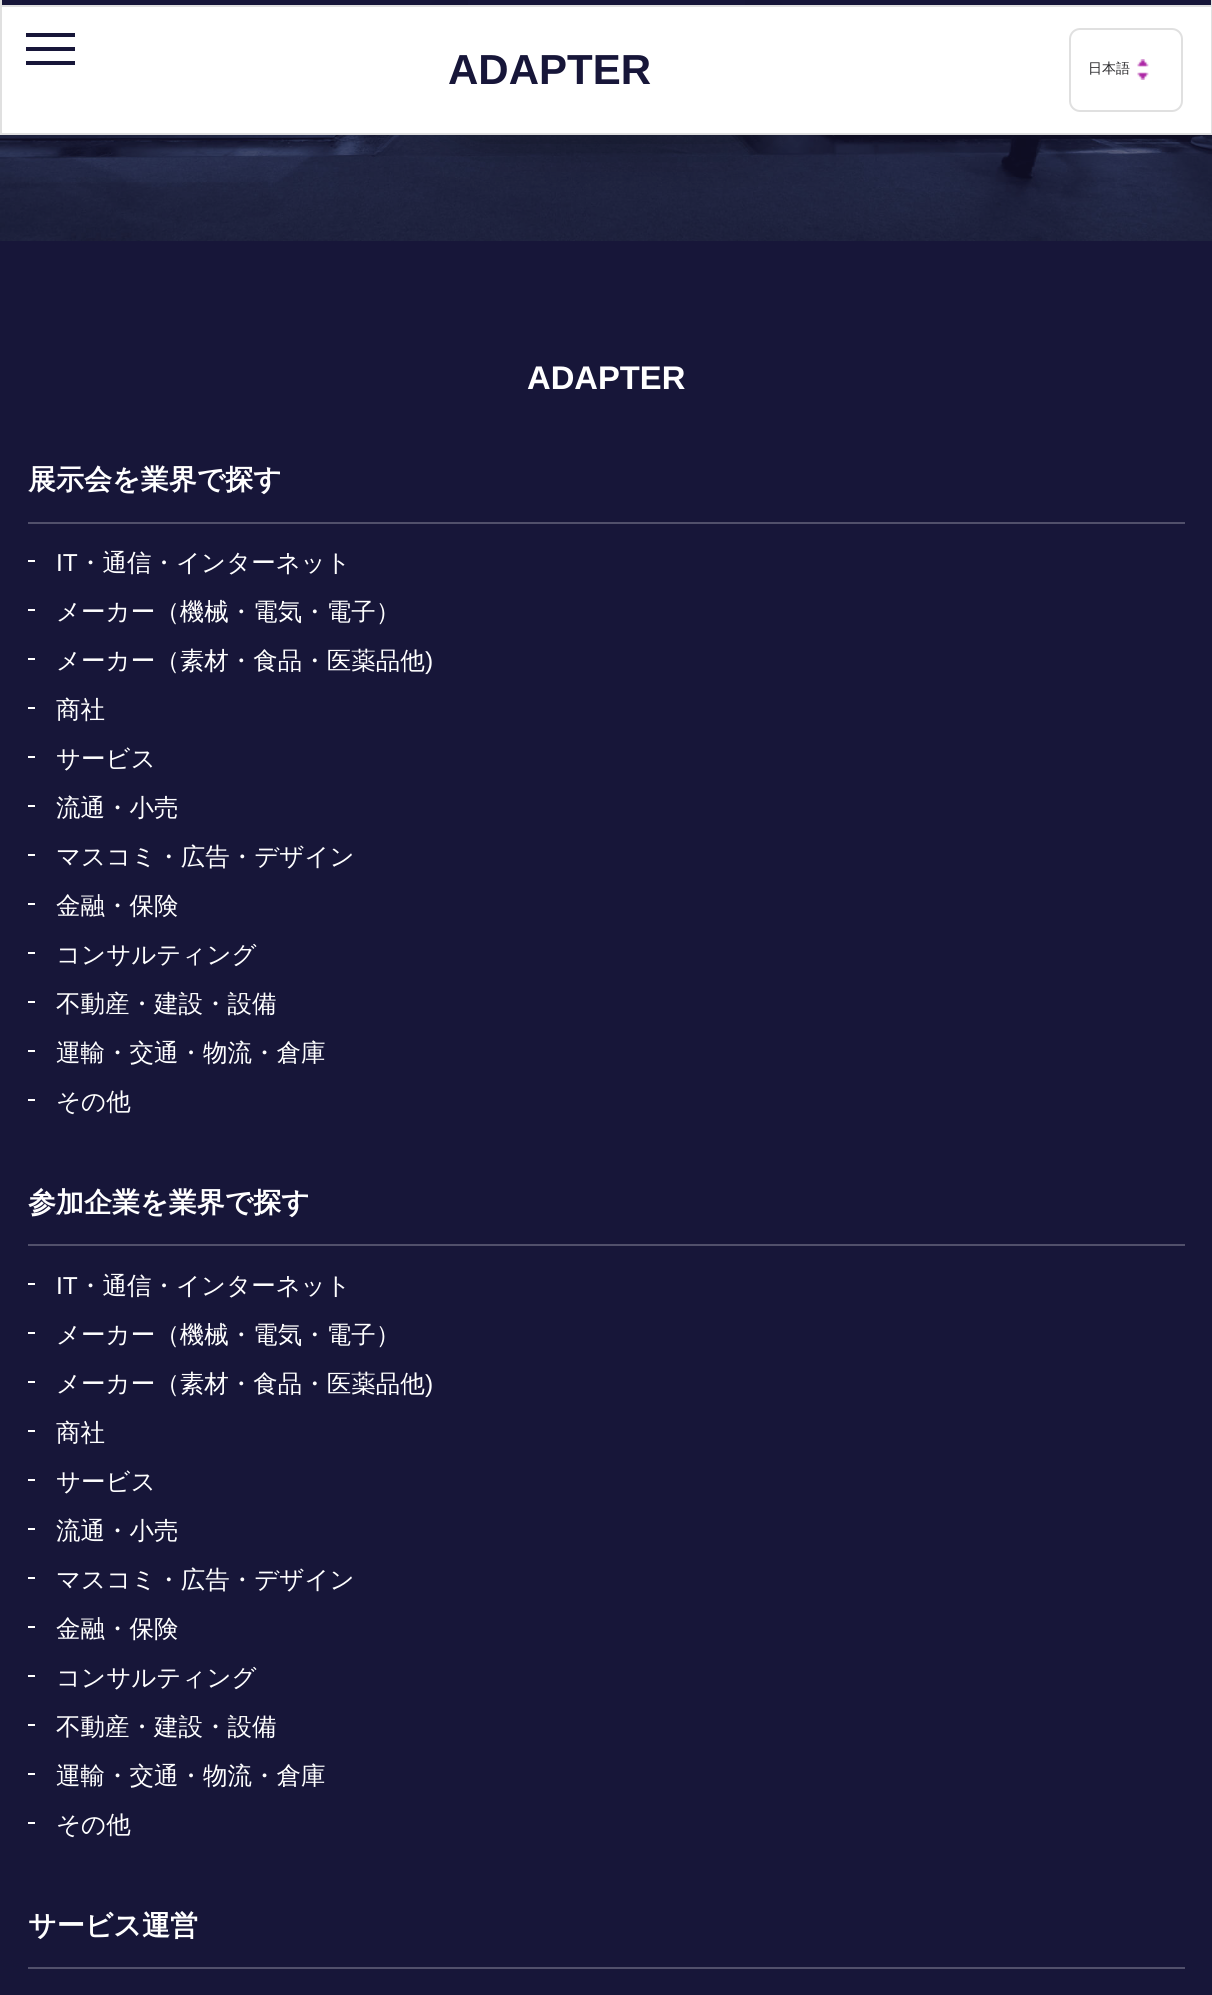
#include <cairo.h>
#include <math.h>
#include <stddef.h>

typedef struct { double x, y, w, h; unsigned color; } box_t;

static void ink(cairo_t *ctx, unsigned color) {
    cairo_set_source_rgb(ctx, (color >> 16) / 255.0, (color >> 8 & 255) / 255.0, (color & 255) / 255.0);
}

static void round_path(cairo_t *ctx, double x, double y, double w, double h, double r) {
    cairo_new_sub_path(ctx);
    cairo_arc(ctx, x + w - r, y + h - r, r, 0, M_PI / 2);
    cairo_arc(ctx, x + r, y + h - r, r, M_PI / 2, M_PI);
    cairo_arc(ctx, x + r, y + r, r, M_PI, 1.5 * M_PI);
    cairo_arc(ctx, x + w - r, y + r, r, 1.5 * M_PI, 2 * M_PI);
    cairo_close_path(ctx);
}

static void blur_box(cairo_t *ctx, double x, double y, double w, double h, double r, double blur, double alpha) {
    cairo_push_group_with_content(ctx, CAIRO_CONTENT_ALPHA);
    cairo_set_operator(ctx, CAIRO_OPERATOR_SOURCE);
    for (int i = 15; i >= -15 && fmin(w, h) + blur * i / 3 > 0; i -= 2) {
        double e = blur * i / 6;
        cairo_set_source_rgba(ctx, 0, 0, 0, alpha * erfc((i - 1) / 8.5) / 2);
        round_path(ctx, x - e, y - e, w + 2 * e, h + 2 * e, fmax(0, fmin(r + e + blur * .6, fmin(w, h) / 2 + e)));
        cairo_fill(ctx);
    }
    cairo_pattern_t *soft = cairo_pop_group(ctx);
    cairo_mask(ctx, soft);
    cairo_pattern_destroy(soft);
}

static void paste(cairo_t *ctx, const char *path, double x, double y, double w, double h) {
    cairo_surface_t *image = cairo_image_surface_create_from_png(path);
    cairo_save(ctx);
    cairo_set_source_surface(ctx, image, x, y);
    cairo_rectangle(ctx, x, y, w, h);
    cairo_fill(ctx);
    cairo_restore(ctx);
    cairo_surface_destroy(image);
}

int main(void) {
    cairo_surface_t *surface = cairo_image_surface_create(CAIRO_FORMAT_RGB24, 1212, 1995);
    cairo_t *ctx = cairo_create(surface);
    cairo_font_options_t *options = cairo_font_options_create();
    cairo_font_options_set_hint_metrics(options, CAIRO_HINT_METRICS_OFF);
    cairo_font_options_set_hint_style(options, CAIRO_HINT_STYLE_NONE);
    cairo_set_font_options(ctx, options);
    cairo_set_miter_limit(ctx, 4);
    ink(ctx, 0x171639);
    cairo_paint(ctx);
    paste(ctx, "media/1.png", 0, 135, 1212, 106);
    ink(ctx, 0x000000);
    blur_box(ctx, 445, 32, 323, 98, 49, 28, 0.5);
    cairo_rectangle(ctx, 1, -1, 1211, 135);
    ink(ctx, 0xE0E0E0);
    cairo_stroke(ctx);
    {
        static const box_t items[] = {
            {468, 0, 277, 5, 0x171639},
            {2, 5, 1209, 2, 0xE0E0E0},
            {2, 7, 1209, 126, 0xFFFFFF},
            {26, 47, 49, 4, 0x171639},
            {26, 33, 49, 4, 0x171639},
            {26, 61, 49, 4, 0x171639},
        };
        for (size_t i = 0; i < sizeof items / sizeof *items; i++) {
            ink(ctx, items[i].color);
            cairo_rectangle(ctx, items[i].x, items[i].y, items[i].w, items[i].h);
            cairo_fill(ctx);
        }
    }
    cairo_select_font_face(ctx, "Liberation Sans", CAIRO_FONT_SLANT_NORMAL, CAIRO_FONT_WEIGHT_BOLD);
    cairo_set_font_size(ctx, 42);
    cairo_move_to(ctx, 448, 84);
    cairo_show_text(ctx, "ADAPTER");
    paste(ctx, "media/2.png", 1137, 59, 12, 21);
    round_path(ctx, 1070, 29, 112, 82, 10);
    ink(ctx, 0xE0E0E0);
    cairo_stroke(ctx);
    cairo_select_font_face(ctx, "WenQuanYi Zen Hei Medium", CAIRO_FONT_SLANT_NORMAL, CAIRO_FONT_WEIGHT_NORMAL);
    cairo_set_font_size(ctx, 14);
    ink(ctx, 0x28272A);
    cairo_move_to(ctx, 1088, 73);
    cairo_show_text(ctx, "日本語");
    cairo_select_font_face(ctx, "Liberation Sans", CAIRO_FONT_SLANT_NORMAL, CAIRO_FONT_WEIGHT_BOLD);
    cairo_set_font_size(ctx, 32.75);
    ink(ctx, 0xFFFFFF);
    cairo_move_to(ctx, 527, 389);
    cairo_show_text(ctx, "ADAPTER");
    ink(ctx, 0x51506B);
    cairo_rectangle(ctx, 28, 522, 1157, 2);
    cairo_fill(ctx);
    cairo_select_font_face(ctx, "WenQuanYi Zen Hei", CAIRO_FONT_SLANT_NORMAL, CAIRO_FONT_WEIGHT_BOLD);
    cairo_set_font_size(ctx, 28);
    ink(ctx, 0xFFFFFF);
    cairo_move_to(ctx, 28, 489);
    cairo_show_text(ctx, "展示会を業界で探す");
    cairo_rectangle(ctx, 28, 560, 7, 2);
    cairo_fill(ctx);
    cairo_select_font_face(ctx, "Liberation Sans", CAIRO_FONT_SLANT_NORMAL, CAIRO_FONT_WEIGHT_NORMAL);
    cairo_set_font_size(ctx, 24.5);
    cairo_move_to(ctx, 56, 571);
    cairo_show_text(ctx, "IT");
    cairo_select_font_face(ctx, "WenQuanYi Zen Hei Medium", CAIRO_FONT_SLANT_NORMAL, CAIRO_FONT_WEIGHT_NORMAL);
    cairo_move_to(ctx, 78, 571);
    cairo_show_text(ctx, "・通信・インターネット");
    cairo_rectangle(ctx, 28, 609, 7, 2);
    cairo_fill(ctx);
    cairo_move_to(ctx, 56, 620);
    cairo_show_text(ctx, "メーカー（機械・電気・電子）");
    cairo_rectangle(ctx, 28, 658, 7, 2);
    cairo_fill(ctx);
    cairo_move_to(ctx, 56, 669);
    cairo_show_text(ctx, "メーカー（素材・食品・医薬品他");
    cairo_select_font_face(ctx, "Liberation Sans", CAIRO_FONT_SLANT_NORMAL, CAIRO_FONT_WEIGHT_NORMAL);
    cairo_move_to(ctx, 425, 669);
    cairo_show_text(ctx, ")");
    cairo_rectangle(ctx, 28, 707, 7, 2);
    cairo_fill(ctx);
    cairo_select_font_face(ctx, "WenQuanYi Zen Hei Medium", CAIRO_FONT_SLANT_NORMAL, CAIRO_FONT_WEIGHT_NORMAL);
    cairo_move_to(ctx, 56, 718);
    cairo_show_text(ctx, "商社");
    cairo_rectangle(ctx, 28, 756, 7, 2);
    cairo_fill(ctx);
    cairo_move_to(ctx, 56, 767);
    cairo_show_text(ctx, "サービス");
    cairo_rectangle(ctx, 28, 805, 7, 2);
    cairo_fill(ctx);
    cairo_move_to(ctx, 56, 816);
    cairo_show_text(ctx, "流通・小売");
    cairo_rectangle(ctx, 28, 854, 7, 2);
    cairo_fill(ctx);
    cairo_move_to(ctx, 56, 865);
    cairo_show_text(ctx, "マスコミ・広告・デザイン");
    cairo_rectangle(ctx, 28, 903, 7, 2);
    cairo_fill(ctx);
    cairo_move_to(ctx, 56, 914);
    cairo_show_text(ctx, "金融・保険");
    cairo_rectangle(ctx, 28, 952, 7, 2);
    cairo_fill(ctx);
    cairo_move_to(ctx, 56, 963);
    cairo_show_text(ctx, "コンサルティング");
    cairo_rectangle(ctx, 28, 1001, 7, 2);
    cairo_fill(ctx);
    cairo_move_to(ctx, 56, 1012);
    cairo_show_text(ctx, "不動産・建設・設備");
    cairo_rectangle(ctx, 28, 1050, 7, 2);
    cairo_fill(ctx);
    cairo_move_to(ctx, 56, 1061);
    cairo_show_text(ctx, "運輸・交通・物流・倉庫");
    cairo_rectangle(ctx, 28, 1099, 7, 2);
    cairo_fill(ctx);
    cairo_move_to(ctx, 56, 1110);
    cairo_show_text(ctx, "その他");
    ink(ctx, 0x51506B);
    cairo_rectangle(ctx, 28, 1244, 1157, 2);
    cairo_fill(ctx);
    cairo_select_font_face(ctx, "WenQuanYi Zen Hei", CAIRO_FONT_SLANT_NORMAL, CAIRO_FONT_WEIGHT_BOLD);
    cairo_set_font_size(ctx, 28);
    ink(ctx, 0xFFFFFF);
    cairo_move_to(ctx, 28, 1212);
    cairo_show_text(ctx, "参加企業を業界で探す");
    cairo_rectangle(ctx, 28, 1283, 7, 2);
    cairo_fill(ctx);
    cairo_select_font_face(ctx, "Liberation Sans", CAIRO_FONT_SLANT_NORMAL, CAIRO_FONT_WEIGHT_NORMAL);
    cairo_set_font_size(ctx, 24.5);
    cairo_move_to(ctx, 56, 1294);
    cairo_show_text(ctx, "IT");
    cairo_select_font_face(ctx, "WenQuanYi Zen Hei Medium", CAIRO_FONT_SLANT_NORMAL, CAIRO_FONT_WEIGHT_NORMAL);
    cairo_move_to(ctx, 78, 1294);
    cairo_show_text(ctx, "・通信・インターネット");
    cairo_rectangle(ctx, 28, 1332, 7, 2);
    cairo_fill(ctx);
    cairo_move_to(ctx, 56, 1343);
    cairo_show_text(ctx, "メーカー（機械・電気・電子）");
    cairo_rectangle(ctx, 28, 1381, 7, 2);
    cairo_fill(ctx);
    cairo_move_to(ctx, 56, 1392);
    cairo_show_text(ctx, "メーカー（素材・食品・医薬品他");
    cairo_select_font_face(ctx, "Liberation Sans", CAIRO_FONT_SLANT_NORMAL, CAIRO_FONT_WEIGHT_NORMAL);
    cairo_move_to(ctx, 425, 1392);
    cairo_show_text(ctx, ")");
    cairo_rectangle(ctx, 28, 1430, 7, 2);
    cairo_fill(ctx);
    cairo_select_font_face(ctx, "WenQuanYi Zen Hei Medium", CAIRO_FONT_SLANT_NORMAL, CAIRO_FONT_WEIGHT_NORMAL);
    cairo_move_to(ctx, 56, 1441);
    cairo_show_text(ctx, "商社");
    cairo_rectangle(ctx, 28, 1479, 7, 2);
    cairo_fill(ctx);
    cairo_move_to(ctx, 56, 1490);
    cairo_show_text(ctx, "サービス");
    cairo_rectangle(ctx, 28, 1528, 7, 2);
    cairo_fill(ctx);
    cairo_move_to(ctx, 56, 1539);
    cairo_show_text(ctx, "流通・小売");
    cairo_rectangle(ctx, 28, 1577, 7, 2);
    cairo_fill(ctx);
    cairo_move_to(ctx, 56, 1588);
    cairo_show_text(ctx, "マスコミ・広告・デザイン");
    cairo_rectangle(ctx, 28, 1626, 7, 2);
    cairo_fill(ctx);
    cairo_move_to(ctx, 56, 1637);
    cairo_show_text(ctx, "金融・保険");
    cairo_rectangle(ctx, 28, 1675, 7, 2);
    cairo_fill(ctx);
    cairo_move_to(ctx, 56, 1686);
    cairo_show_text(ctx, "コンサルティング");
    cairo_rectangle(ctx, 28, 1724, 7, 2);
    cairo_fill(ctx);
    cairo_move_to(ctx, 56, 1735);
    cairo_show_text(ctx, "不動産・建設・設備");
    cairo_rectangle(ctx, 28, 1773, 7, 2);
    cairo_fill(ctx);
    cairo_move_to(ctx, 56, 1784);
    cairo_show_text(ctx, "運輸・交通・物流・倉庫");
    cairo_rectangle(ctx, 28, 1822, 7, 2);
    cairo_fill(ctx);
    cairo_move_to(ctx, 56, 1833);
    cairo_show_text(ctx, "その他");
    ink(ctx, 0x51506B);
    cairo_rectangle(ctx, 28, 1967, 1157, 2);
    cairo_fill(ctx);
    cairo_select_font_face(ctx, "WenQuanYi Zen Hei", CAIRO_FONT_SLANT_NORMAL, CAIRO_FONT_WEIGHT_BOLD);
    cairo_set_font_size(ctx, 28);
    ink(ctx, 0xFFFFFF);
    cairo_move_to(ctx, 28, 1935);
    cairo_show_text(ctx, "サービス運営");
    cairo_surface_write_to_png(surface, "image.png");
    cairo_font_options_destroy(options);
    cairo_destroy(ctx);
    cairo_surface_destroy(surface);
    return 0;
}
